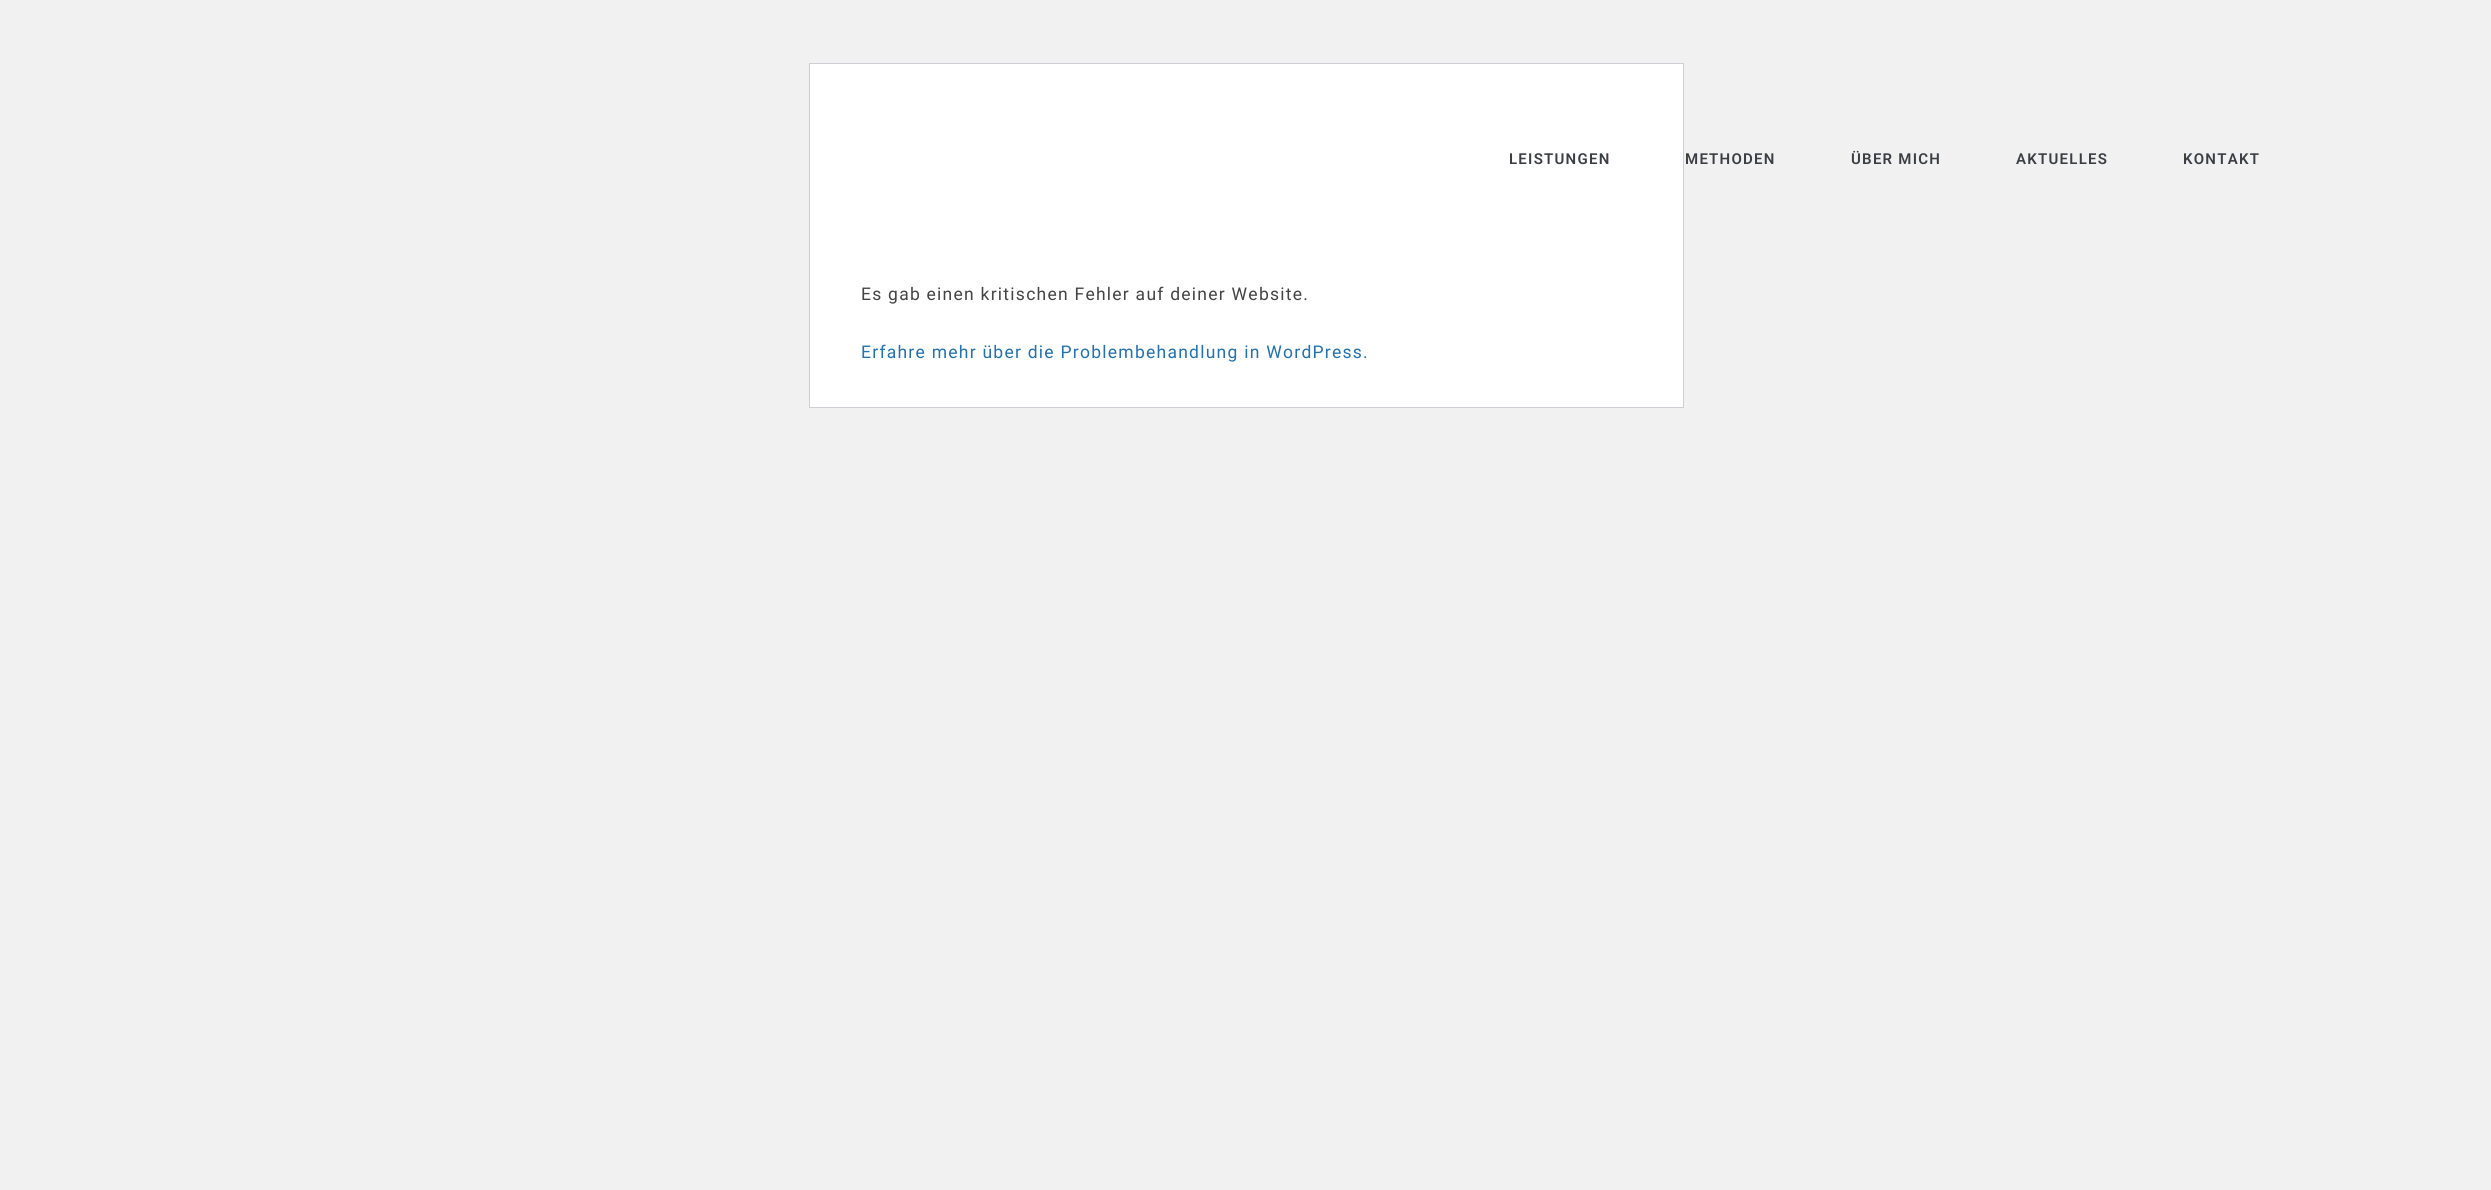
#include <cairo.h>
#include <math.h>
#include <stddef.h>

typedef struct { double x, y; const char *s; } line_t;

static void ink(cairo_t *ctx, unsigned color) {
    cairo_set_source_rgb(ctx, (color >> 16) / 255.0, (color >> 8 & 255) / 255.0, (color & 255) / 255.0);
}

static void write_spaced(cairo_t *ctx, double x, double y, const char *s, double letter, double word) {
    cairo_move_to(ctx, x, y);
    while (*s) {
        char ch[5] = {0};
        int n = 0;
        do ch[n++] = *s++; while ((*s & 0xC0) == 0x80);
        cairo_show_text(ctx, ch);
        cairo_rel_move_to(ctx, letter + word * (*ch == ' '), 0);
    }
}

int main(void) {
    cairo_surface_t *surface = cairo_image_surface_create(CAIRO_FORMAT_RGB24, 2491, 1190);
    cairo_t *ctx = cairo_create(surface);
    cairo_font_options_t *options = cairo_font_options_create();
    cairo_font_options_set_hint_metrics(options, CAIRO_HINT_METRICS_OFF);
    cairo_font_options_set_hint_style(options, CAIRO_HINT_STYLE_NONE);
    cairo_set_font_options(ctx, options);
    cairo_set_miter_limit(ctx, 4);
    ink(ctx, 0xF1F1F1);
    cairo_paint(ctx);
    ink(ctx, 0xFFFFFF);
    cairo_rectangle(ctx, 809.5, 63.5, 874, 344);
    cairo_fill_preserve(ctx);
    ink(ctx, 0xCCD0D4);
    cairo_set_line_width(ctx, 1);
    cairo_stroke(ctx);
    cairo_select_font_face(ctx, "Roboto SemiBold", CAIRO_FONT_SLANT_NORMAL, CAIRO_FONT_WEIGHT_NORMAL);
    cairo_set_font_size(ctx, 15);
    ink(ctx, 0x3B3E43);
    {
        static const line_t items[] = {
            {1509, 164, "LEISTUNGEN"},
            {1685, 164, "METHODEN"},
            {1851, 164, "ÜBER MICH"},
            {2016, 164, "AKTUELLES"},
            {2183, 164, "KONTAKT"},
        };
        for (size_t i = 0; i < sizeof items / sizeof *items; i++) {
            write_spaced(ctx, items[i].x, items[i].y, items[i].s, 1.25, 0);
        }
    }
    cairo_select_font_face(ctx, "Roboto", CAIRO_FONT_SLANT_NORMAL, CAIRO_FONT_WEIGHT_NORMAL);
    cairo_set_font_size(ctx, 17.5);
    ink(ctx, 0x444444);
    write_spaced(ctx, 861, 300, "Es gab einen kritischen Fehler auf deiner Website.", 1.25, 0);
    ink(ctx, 0x2271B1);
    write_spaced(ctx, 861, 358, "Erfahre mehr über die Problembehandlung in WordPress.", 1.25, 0);
    cairo_surface_write_to_png(surface, "image.png");
    cairo_font_options_destroy(options);
    cairo_destroy(ctx);
    cairo_surface_destroy(surface);
    return 0;
}
